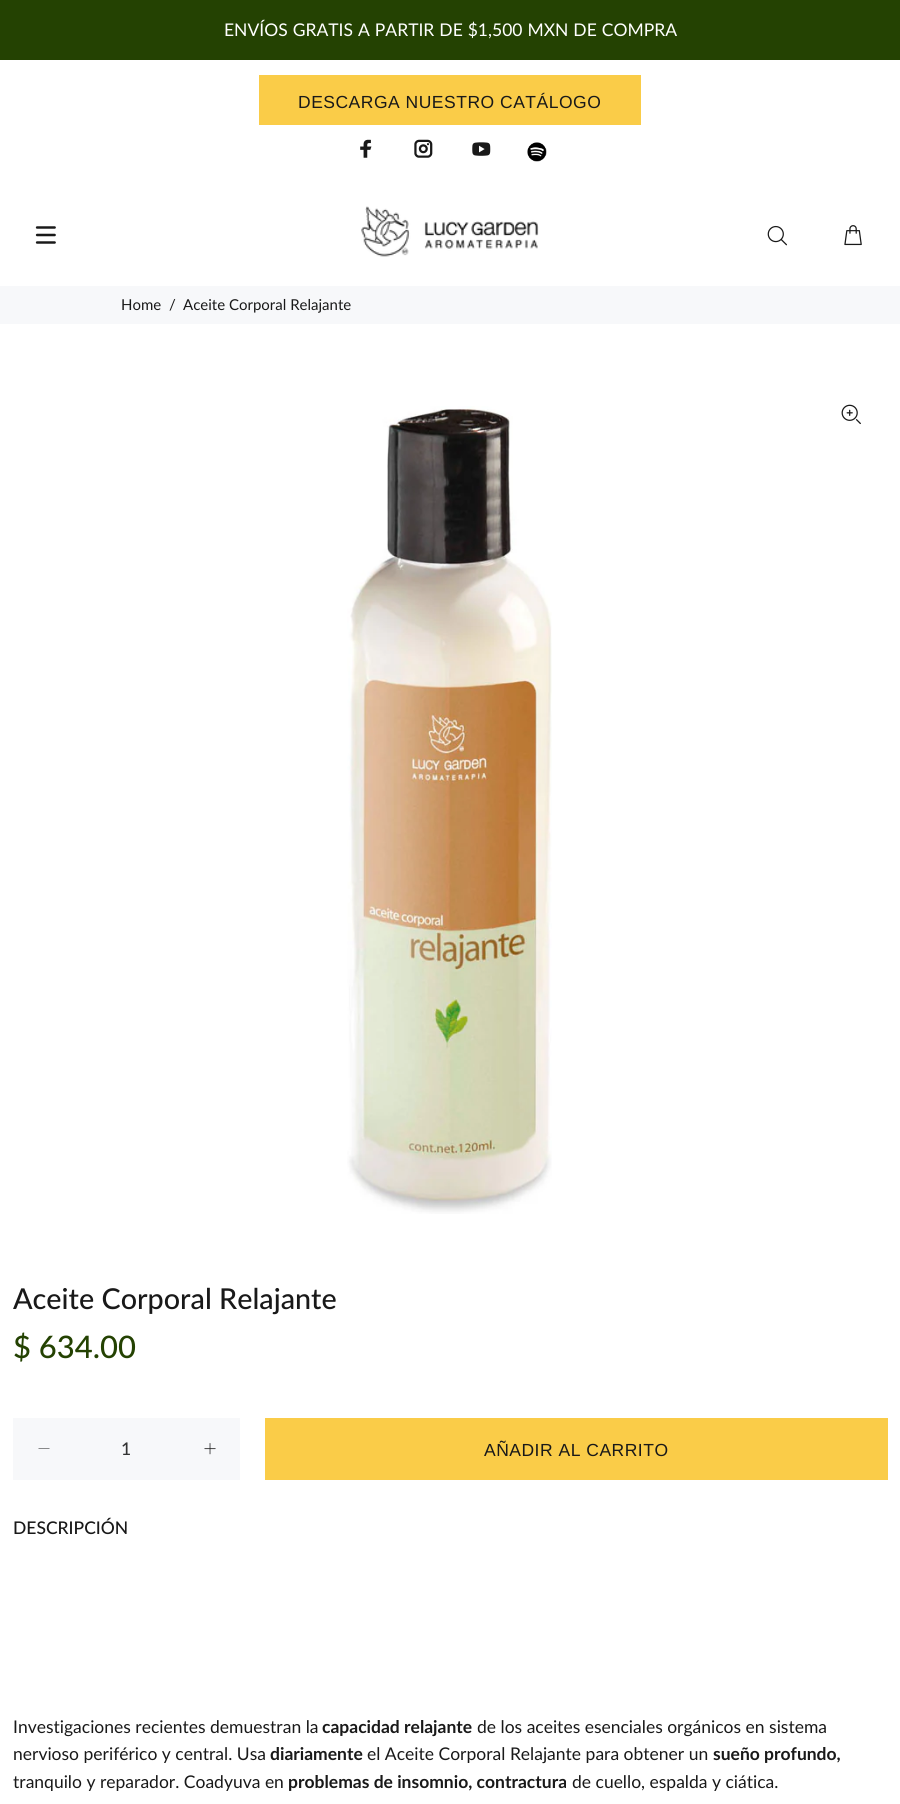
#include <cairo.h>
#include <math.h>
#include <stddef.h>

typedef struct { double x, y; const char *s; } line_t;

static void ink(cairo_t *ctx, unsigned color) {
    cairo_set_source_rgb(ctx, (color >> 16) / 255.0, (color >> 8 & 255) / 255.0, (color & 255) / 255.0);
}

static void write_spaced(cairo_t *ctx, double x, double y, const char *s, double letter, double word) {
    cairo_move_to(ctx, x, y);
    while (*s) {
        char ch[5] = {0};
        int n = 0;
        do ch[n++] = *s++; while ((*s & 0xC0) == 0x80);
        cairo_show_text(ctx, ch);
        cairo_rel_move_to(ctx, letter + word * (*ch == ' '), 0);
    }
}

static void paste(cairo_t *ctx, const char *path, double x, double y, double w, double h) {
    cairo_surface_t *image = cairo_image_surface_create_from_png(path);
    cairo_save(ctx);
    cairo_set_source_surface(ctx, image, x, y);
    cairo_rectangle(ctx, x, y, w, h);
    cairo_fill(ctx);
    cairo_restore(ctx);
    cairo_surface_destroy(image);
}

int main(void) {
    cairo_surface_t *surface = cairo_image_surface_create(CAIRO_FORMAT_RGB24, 900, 1804);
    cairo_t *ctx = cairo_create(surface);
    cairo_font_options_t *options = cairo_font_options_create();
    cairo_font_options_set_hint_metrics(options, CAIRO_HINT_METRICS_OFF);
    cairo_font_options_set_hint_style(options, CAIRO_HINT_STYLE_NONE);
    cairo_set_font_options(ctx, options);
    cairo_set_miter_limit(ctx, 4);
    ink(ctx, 0xFFFFFF);
    cairo_paint(ctx);
    ink(ctx, 0x244202);
    cairo_rectangle(ctx, 0, 0, 900, 60);
    cairo_fill(ctx);
    cairo_select_font_face(ctx, "Lato", CAIRO_FONT_SLANT_NORMAL, CAIRO_FONT_WEIGHT_NORMAL);
    cairo_set_font_size(ctx, 17.5);
    ink(ctx, 0xFFFFFF);
    write_spaced(ctx, 224, 36, "ENVÍOS GRATIS A PARTIR DE $1,500 MXN DE COMPRA", 0, 0.5);
    ink(ctx, 0xFACC48);
    cairo_rectangle(ctx, 259, 75, 382, 50);
    cairo_fill(ctx);
    cairo_select_font_face(ctx, "Liberation Sans", CAIRO_FONT_SLANT_NORMAL, CAIRO_FONT_WEIGHT_NORMAL);
    ink(ctx, 0x191919);
    write_spaced(ctx, 298, 108, "DESCARGA NUESTRO CATÁLOGO", 0.5, 0);
    paste(ctx, "media/1.png", 360, 139, 12, 19);
    paste(ctx, "media/2.png", 414, 139, 19, 19);
    paste(ctx, "media/3.png", 472, 142, 19, 14);
    paste(ctx, "media/4.png", 527, 142, 20, 20);
    paste(ctx, "media/5.png", 35, 226, 21, 18);
    paste(ctx, "media/6.png", 361, 206, 178, 51);
    paste(ctx, "media/7.png", 767, 225, 20, 21);
    paste(ctx, "media/8.png", 844, 225, 18, 21);
    ink(ctx, 0xF7F8FA);
    cairo_rectangle(ctx, 0, 286, 900, 38);
    cairo_fill(ctx);
    cairo_select_font_face(ctx, "Lato", CAIRO_FONT_SLANT_NORMAL, CAIRO_FONT_WEIGHT_NORMAL);
    cairo_set_font_size(ctx, 15);
    ink(ctx, 0x191919);
    {
        static const line_t items[] = {
            {121, 310, "Home"},
            {169, 310, "/"},
            {183, 310, "Aceite Corporal Relajante"},
        };
        for (size_t i = 0; i < sizeof items / sizeof *items; i++) {
            cairo_move_to(ctx, items[i].x, items[i].y);
            cairo_show_text(ctx, items[i].s);
        }
    }
    paste(ctx, "media/9.png", 347, 406, 205, 808);
    paste(ctx, "media/10.png", 841, 404, 20, 21);
    cairo_select_font_face(ctx, "Lato Medium", CAIRO_FONT_SLANT_NORMAL, CAIRO_FONT_WEIGHT_NORMAL);
    cairo_set_font_size(ctx, 28.75);
    cairo_move_to(ctx, 13, 1309);
    cairo_show_text(ctx, "Aceite Corporal Relajante");
    cairo_set_font_size(ctx, 31);
    ink(ctx, 0x244202);
    cairo_move_to(ctx, 13, 1358);
    cairo_show_text(ctx, "$ 634.00");
    ink(ctx, 0xF7F8FA);
    cairo_rectangle(ctx, 13, 1418, 227, 62);
    cairo_fill(ctx);
    ink(ctx, 0x191919);
    cairo_new_path(ctx);
    cairo_move_to(ctx, 49.5, 1448.5);
    cairo_line_to(ctx, 49.5, 1449);
    cairo_line_to(ctx, 38.5, 1449);
    cairo_line_to(ctx, 38.5, 1448.5);
    cairo_close_path(ctx);
    cairo_fill(ctx);
    cairo_set_font_size(ctx, 17.5);
    ink(ctx, 0x333333);
    cairo_move_to(ctx, 121, 1455);
    cairo_show_text(ctx, "1");
    paste(ctx, "media/11.png", 204, 1443, 12, 12);
    ink(ctx, 0xFACC48);
    cairo_rectangle(ctx, 265, 1418, 623, 62);
    cairo_fill(ctx);
    cairo_select_font_face(ctx, "Liberation Sans", CAIRO_FONT_SLANT_NORMAL, CAIRO_FONT_WEIGHT_NORMAL);
    ink(ctx, 0x191919);
    write_spaced(ctx, 484, 1456, "AÑADIR AL CARRITO", 0.5, 0);
    cairo_select_font_face(ctx, "Lato Medium", CAIRO_FONT_SLANT_NORMAL, CAIRO_FONT_WEIGHT_NORMAL);
    cairo_move_to(ctx, 13, 1534);
    cairo_show_text(ctx, "DESCRIPCIÓN");
    cairo_select_font_face(ctx, "Lato", CAIRO_FONT_SLANT_NORMAL, CAIRO_FONT_WEIGHT_NORMAL);
    cairo_move_to(ctx, 13, 1733);
    cairo_show_text(ctx, "Investigaciones recientes demuestran la");
    cairo_select_font_face(ctx, "Lato", CAIRO_FONT_SLANT_NORMAL, CAIRO_FONT_WEIGHT_BOLD);
    cairo_move_to(ctx, 322, 1733);
    cairo_show_text(ctx, "capacidad relajante");
    cairo_select_font_face(ctx, "Lato", CAIRO_FONT_SLANT_NORMAL, CAIRO_FONT_WEIGHT_NORMAL);
    cairo_move_to(ctx, 477, 1733);
    cairo_show_text(ctx, "de los aceites esenciales orgánicos en sistema");
    cairo_move_to(ctx, 13, 1760);
    cairo_show_text(ctx, "nervioso periférico y central. Usa");
    cairo_select_font_face(ctx, "Lato", CAIRO_FONT_SLANT_NORMAL, CAIRO_FONT_WEIGHT_BOLD);
    cairo_move_to(ctx, 270, 1760);
    cairo_show_text(ctx, "diariamente");
    cairo_select_font_face(ctx, "Lato", CAIRO_FONT_SLANT_NORMAL, CAIRO_FONT_WEIGHT_NORMAL);
    cairo_move_to(ctx, 367, 1760);
    cairo_show_text(ctx, "el Aceite Corporal Relajante para obtener un");
    cairo_select_font_face(ctx, "Lato", CAIRO_FONT_SLANT_NORMAL, CAIRO_FONT_WEIGHT_BOLD);
    cairo_move_to(ctx, 713, 1760);
    cairo_show_text(ctx, "sueño profundo,");
    cairo_select_font_face(ctx, "Lato", CAIRO_FONT_SLANT_NORMAL, CAIRO_FONT_WEIGHT_NORMAL);
    cairo_move_to(ctx, 13, 1788);
    cairo_show_text(ctx, "tranquilo y reparador. Coadyuva en");
    cairo_select_font_face(ctx, "Lato", CAIRO_FONT_SLANT_NORMAL, CAIRO_FONT_WEIGHT_BOLD);
    cairo_move_to(ctx, 288, 1788);
    cairo_show_text(ctx, "problemas de insomnio, contractura");
    cairo_select_font_face(ctx, "Lato", CAIRO_FONT_SLANT_NORMAL, CAIRO_FONT_WEIGHT_NORMAL);
    cairo_move_to(ctx, 572, 1788);
    cairo_show_text(ctx, "de cuello, espalda y ciática.");
    cairo_surface_write_to_png(surface, "image.png");
    cairo_font_options_destroy(options);
    cairo_destroy(ctx);
    cairo_surface_destroy(surface);
    return 0;
}
